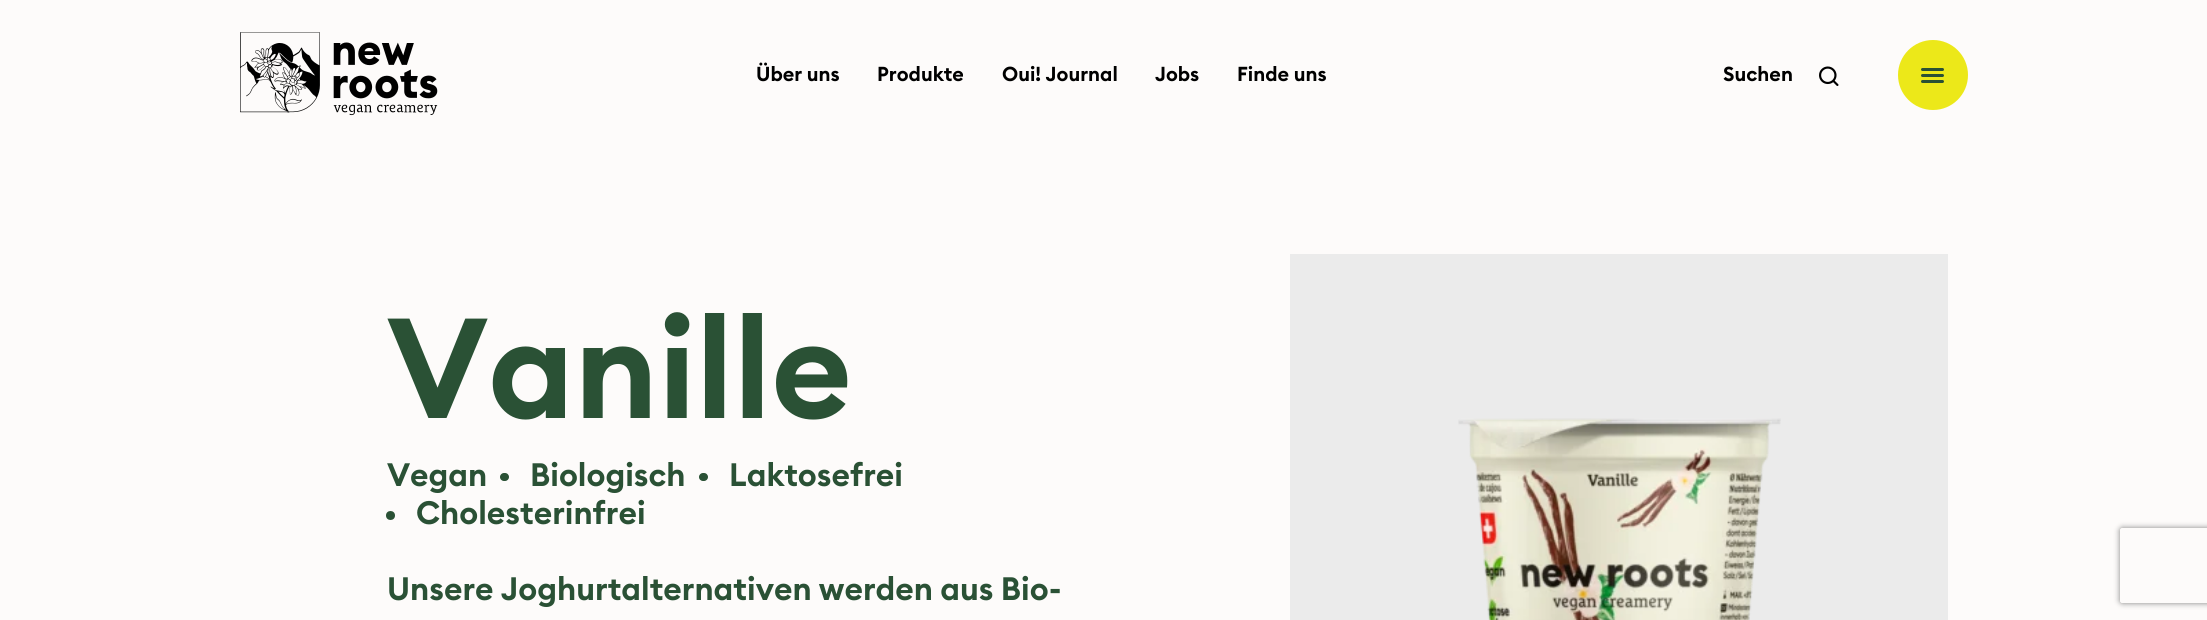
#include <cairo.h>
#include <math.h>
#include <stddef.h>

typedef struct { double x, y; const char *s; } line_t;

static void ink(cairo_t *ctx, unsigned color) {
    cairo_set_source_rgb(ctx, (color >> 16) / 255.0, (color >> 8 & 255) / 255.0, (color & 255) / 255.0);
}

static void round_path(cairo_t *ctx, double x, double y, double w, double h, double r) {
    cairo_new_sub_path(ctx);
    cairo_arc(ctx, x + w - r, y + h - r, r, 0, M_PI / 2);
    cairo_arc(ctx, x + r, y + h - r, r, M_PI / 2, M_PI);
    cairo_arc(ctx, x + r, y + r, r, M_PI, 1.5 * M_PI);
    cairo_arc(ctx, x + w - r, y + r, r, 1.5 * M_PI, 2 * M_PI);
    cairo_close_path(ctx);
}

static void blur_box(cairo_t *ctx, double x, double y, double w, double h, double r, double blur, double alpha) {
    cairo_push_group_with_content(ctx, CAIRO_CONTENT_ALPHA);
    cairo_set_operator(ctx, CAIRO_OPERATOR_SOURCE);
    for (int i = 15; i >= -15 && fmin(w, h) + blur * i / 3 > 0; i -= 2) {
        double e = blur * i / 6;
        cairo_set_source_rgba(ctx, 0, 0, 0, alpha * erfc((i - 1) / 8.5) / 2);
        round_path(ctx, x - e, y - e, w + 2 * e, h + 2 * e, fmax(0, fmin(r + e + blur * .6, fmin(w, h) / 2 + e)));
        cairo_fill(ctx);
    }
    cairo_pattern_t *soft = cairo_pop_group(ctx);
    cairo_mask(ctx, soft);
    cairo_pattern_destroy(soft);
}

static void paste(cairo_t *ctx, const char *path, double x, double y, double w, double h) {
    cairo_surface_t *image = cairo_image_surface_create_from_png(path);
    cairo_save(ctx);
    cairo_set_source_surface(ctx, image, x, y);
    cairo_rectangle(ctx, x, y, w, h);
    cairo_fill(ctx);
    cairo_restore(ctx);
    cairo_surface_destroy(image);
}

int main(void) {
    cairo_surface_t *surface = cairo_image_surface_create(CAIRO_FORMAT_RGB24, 2207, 620);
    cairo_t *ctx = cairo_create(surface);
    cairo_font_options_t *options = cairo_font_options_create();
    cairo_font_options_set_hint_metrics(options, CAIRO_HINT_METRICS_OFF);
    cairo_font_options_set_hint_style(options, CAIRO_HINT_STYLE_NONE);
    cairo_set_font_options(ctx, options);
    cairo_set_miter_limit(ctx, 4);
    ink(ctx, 0xFDFBFA);
    cairo_paint(ctx);
    paste(ctx, "media/1.png", 240, 32, 80, 81);
    paste(ctx, "media/2.png", 333, 42, 105, 74);
    cairo_select_font_face(ctx, "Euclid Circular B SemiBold", CAIRO_FONT_SLANT_NORMAL, CAIRO_FONT_WEIGHT_NORMAL);
    cairo_set_font_size(ctx, 20);
    ink(ctx, 0x000000);
    {
        static const line_t items[] = {
            {756, 81, "Über uns"},
            {877, 81, "Produkte"},
            {1002, 81, "Oui! Journal"},
            {1155, 81, "Jobs"},
            {1237, 81, "Finde uns"},
            {1723, 81, "Suchen"},
        };
        for (size_t i = 0; i < sizeof items / sizeof *items; i++) {
            cairo_move_to(ctx, items[i].x, items[i].y);
            cairo_show_text(ctx, items[i].s);
        }
    }
    paste(ctx, "media/3.png", 1819, 66, 20, 20);
    ink(ctx, 0xECE819);
    cairo_arc(ctx, 1933, 75, 35, 0, 2 * M_PI);
    cairo_fill(ctx);
    ink(ctx, 0x2A5135);
    round_path(ctx, 1921, 68, 23, 3, 1.5);
    cairo_fill(ctx);
    round_path(ctx, 1921, 74, 23, 3, 1.5);
    cairo_fill(ctx);
    round_path(ctx, 1921, 80, 23, 3, 1.5);
    cairo_fill(ctx);
    cairo_set_font_size(ctx, 140);
    cairo_move_to(ctx, 387, 418);
    cairo_show_text(ctx, "Vanille");
    cairo_set_font_size(ctx, 32);
    cairo_move_to(ctx, 387, 486);
    cairo_show_text(ctx, "Vegan");
    round_path(ctx, 500, 473, 9, 8, 4);
    cairo_fill(ctx);
    cairo_move_to(ctx, 530, 486);
    cairo_show_text(ctx, "Biologisch");
    round_path(ctx, 699, 473, 9, 8, 4);
    cairo_fill(ctx);
    cairo_move_to(ctx, 729, 486);
    cairo_show_text(ctx, "Laktosefrei");
    cairo_new_path(ctx);
    cairo_arc(ctx, 390.5, 515.5, 4.5, 0, 2 * M_PI);
    cairo_fill(ctx);
    cairo_move_to(ctx, 416, 524);
    cairo_show_text(ctx, "Cholesterinfrei");
    cairo_move_to(ctx, 387, 600);
    cairo_show_text(ctx, "Unsere Joghurtalternativen werden aus Bio-");
    ink(ctx, 0xEBEBEB);
    cairo_rectangle(ctx, 1290, 254, 658, 366);
    cairo_fill(ctx);
    paste(ctx, "media/4.png", 1458, 418, 323, 202);
    cairo_save(ctx);
    cairo_set_fill_rule(ctx, CAIRO_FILL_RULE_EVEN_ODD);
    cairo_new_path(ctx);
    cairo_move_to(ctx, 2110, 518);
    cairo_line_to(ctx, 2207, 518);
    cairo_line_to(ctx, 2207, 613);
    cairo_line_to(ctx, 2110, 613);
    cairo_close_path(ctx);
    cairo_move_to(ctx, 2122.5, 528);
    cairo_line_to(ctx, 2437.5, 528);
    cairo_curve_to(ctx, 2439, 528, 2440, 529, 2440, 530.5);
    cairo_line_to(ctx, 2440, 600.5);
    cairo_curve_to(ctx, 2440, 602, 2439, 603, 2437.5, 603);
    cairo_line_to(ctx, 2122.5, 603);
    cairo_curve_to(ctx, 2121, 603, 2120, 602, 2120, 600.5);
    cairo_line_to(ctx, 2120, 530.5);
    cairo_curve_to(ctx, 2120, 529, 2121, 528, 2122.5, 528);
    cairo_close_path(ctx);
    cairo_clip(ctx);
    ink(ctx, 0x808080);
    blur_box(ctx, 2120, 528, 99, 75, 2.5, 3, 1);
    cairo_restore(ctx);
    cairo_surface_write_to_png(surface, "image.png");
    cairo_font_options_destroy(options);
    cairo_destroy(ctx);
    cairo_surface_destroy(surface);
    return 0;
}
